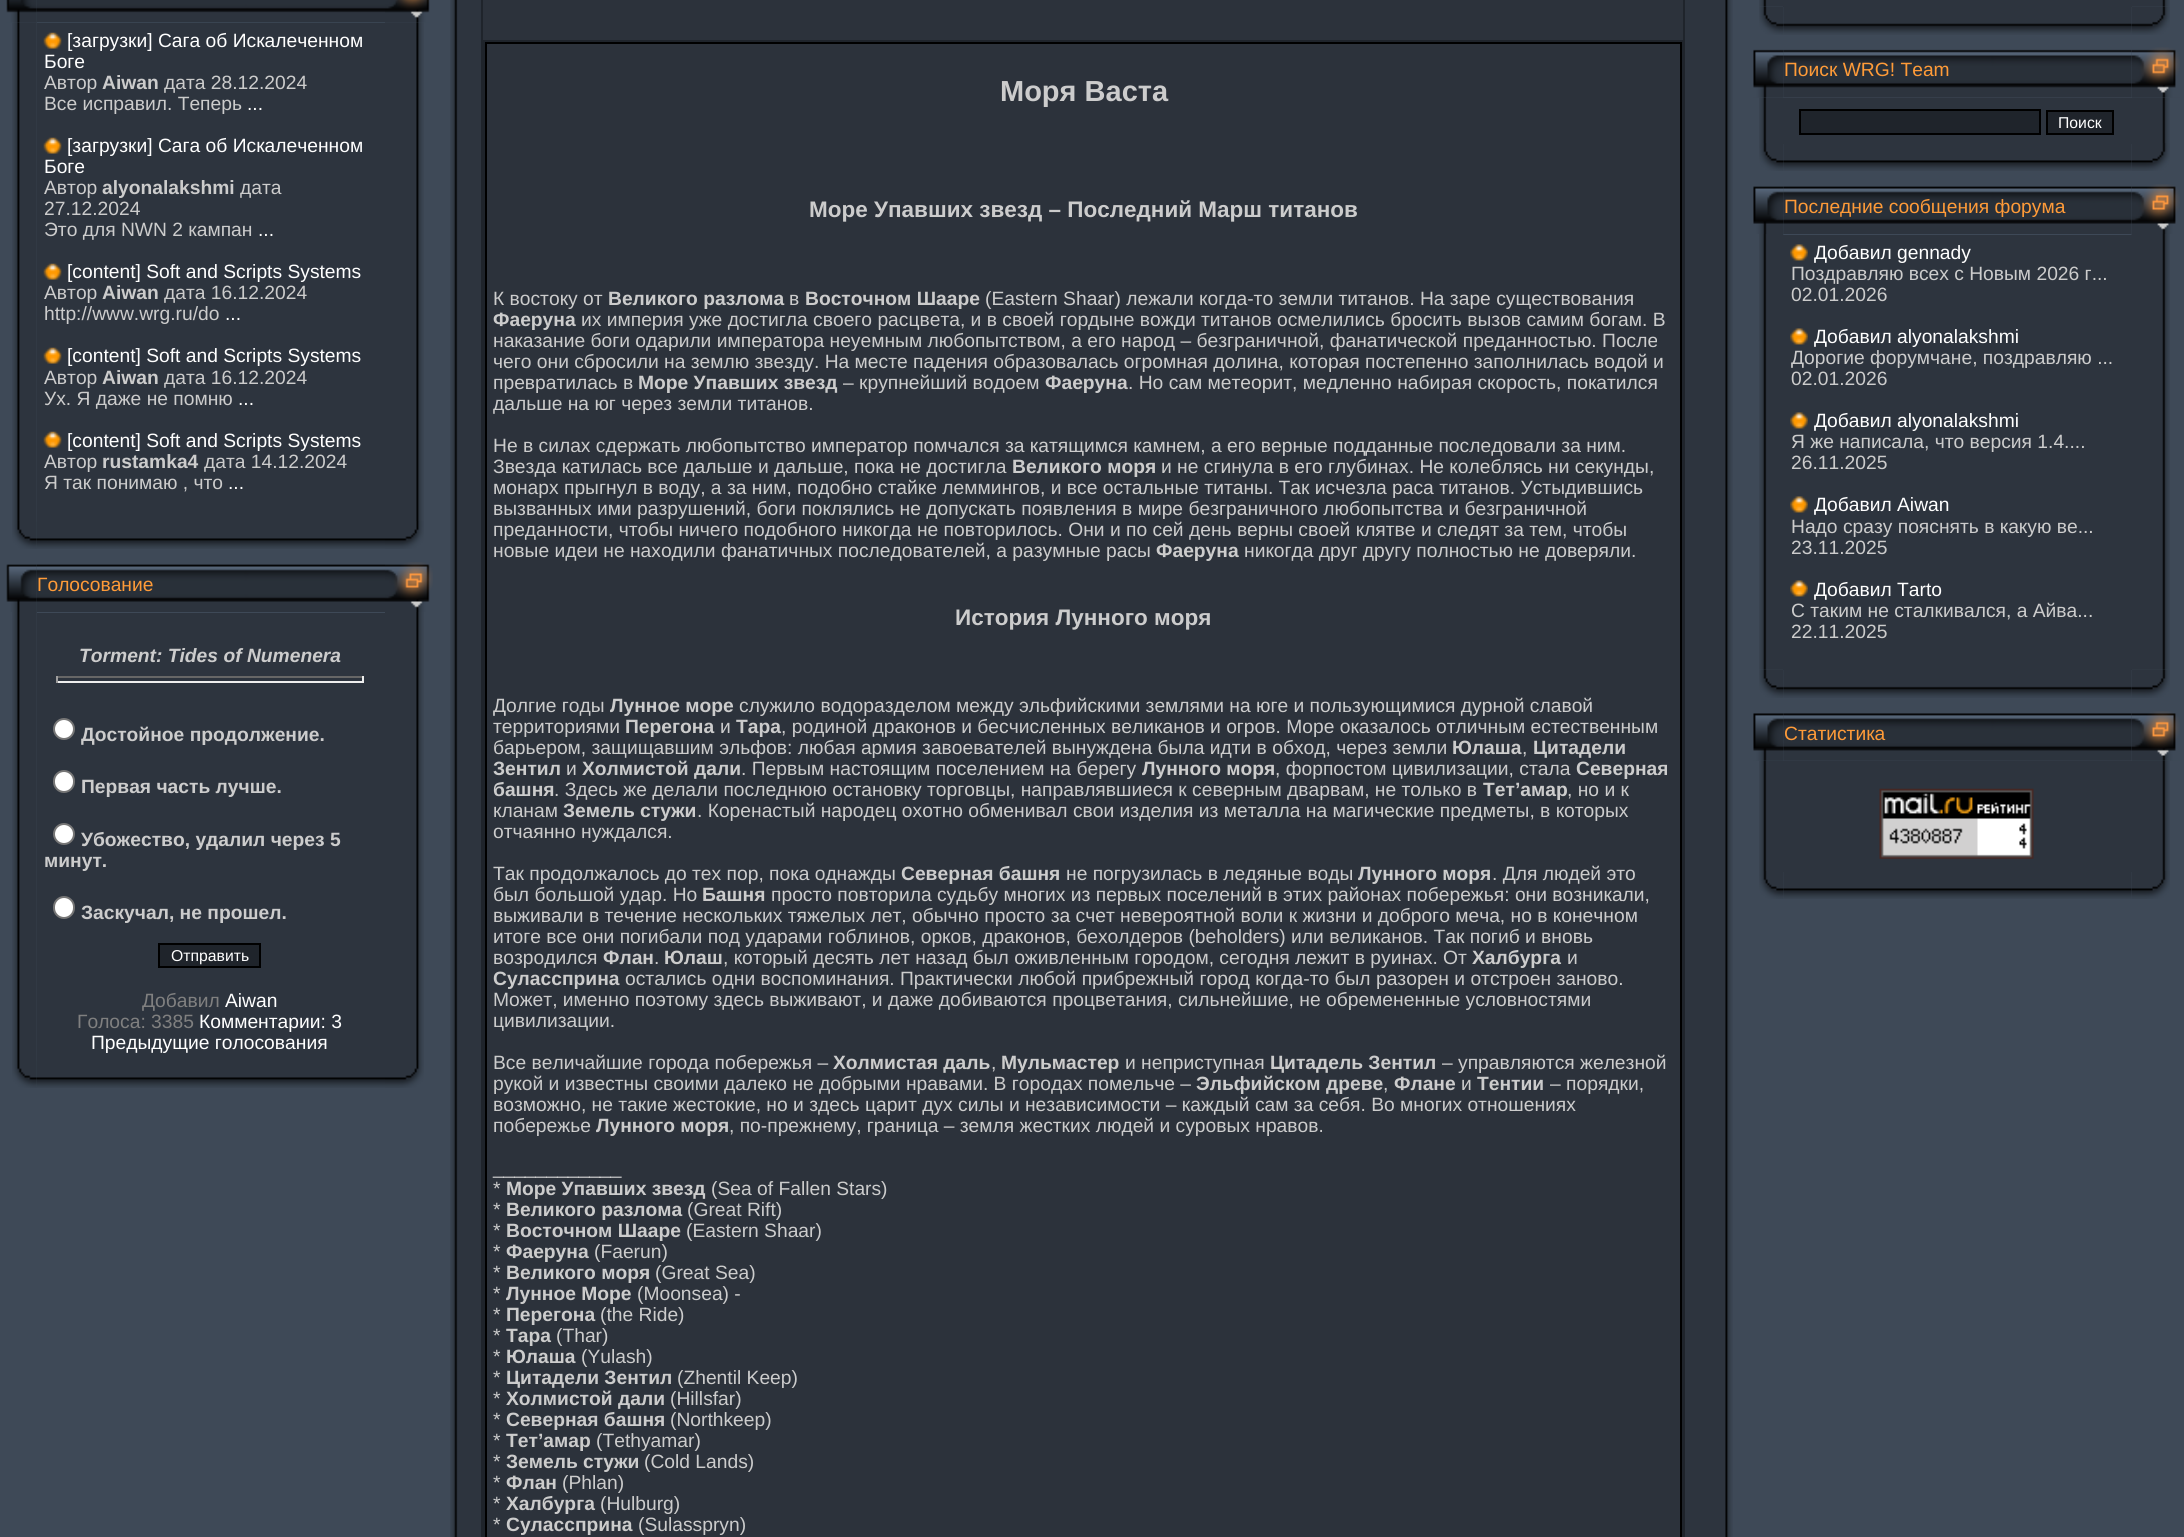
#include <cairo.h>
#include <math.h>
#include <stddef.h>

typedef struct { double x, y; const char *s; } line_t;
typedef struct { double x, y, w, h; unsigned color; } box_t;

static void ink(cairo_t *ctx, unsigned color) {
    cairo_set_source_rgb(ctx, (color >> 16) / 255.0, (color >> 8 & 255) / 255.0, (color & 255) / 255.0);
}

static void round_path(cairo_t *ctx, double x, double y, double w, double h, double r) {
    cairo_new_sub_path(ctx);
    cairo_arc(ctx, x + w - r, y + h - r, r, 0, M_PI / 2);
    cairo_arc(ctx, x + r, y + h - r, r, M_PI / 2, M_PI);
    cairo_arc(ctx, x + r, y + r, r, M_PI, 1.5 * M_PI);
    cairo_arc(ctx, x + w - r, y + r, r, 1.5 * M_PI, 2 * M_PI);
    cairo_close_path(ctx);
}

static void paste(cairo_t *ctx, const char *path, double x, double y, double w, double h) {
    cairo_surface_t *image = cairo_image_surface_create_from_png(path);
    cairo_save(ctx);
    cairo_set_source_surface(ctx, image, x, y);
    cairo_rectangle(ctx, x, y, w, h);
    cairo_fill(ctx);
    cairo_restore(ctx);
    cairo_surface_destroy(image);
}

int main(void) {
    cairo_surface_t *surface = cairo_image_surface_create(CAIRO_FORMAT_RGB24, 2184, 1537);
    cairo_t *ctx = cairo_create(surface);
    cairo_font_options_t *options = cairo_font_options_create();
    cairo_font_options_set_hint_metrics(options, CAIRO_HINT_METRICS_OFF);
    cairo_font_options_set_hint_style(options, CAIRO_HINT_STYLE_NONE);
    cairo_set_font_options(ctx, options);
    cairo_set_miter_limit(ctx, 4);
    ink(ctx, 0x3E4957);
    cairo_paint(ctx);
    paste(ctx, "media/1.png", 6, 0, 31, 23);
    paste(ctx, "media/2.png", 36, 0, 349, 23);
    paste(ctx, "media/3.png", 385, 0, 45, 23);
    paste(ctx, "media/4.png", 12, 22, 25, 499);
    ink(ctx, 0x2D343E);
    cairo_rectangle(ctx, 37, 23, 348, 499);
    cairo_fill(ctx);
    paste(ctx, "media/5.png", 43, 32, 19, 17);
    cairo_select_font_face(ctx, "Liberation Sans", CAIRO_FONT_SLANT_NORMAL, CAIRO_FONT_WEIGHT_NORMAL);
    cairo_set_font_size(ctx, 19.25);
    ink(ctx, 0xFFFFFF);
    cairo_move_to(ctx, 67, 47);
    cairo_show_text(ctx, "[загрузки] Сага об Искалеченном");
    cairo_move_to(ctx, 44, 68);
    cairo_show_text(ctx, "Боге");
    ink(ctx, 0xCCCCCC);
    cairo_move_to(ctx, 44, 89);
    cairo_show_text(ctx, "Автор");
    cairo_select_font_face(ctx, "Liberation Sans", CAIRO_FONT_SLANT_NORMAL, CAIRO_FONT_WEIGHT_BOLD);
    cairo_move_to(ctx, 102, 89);
    cairo_show_text(ctx, "Aiwan");
    cairo_select_font_face(ctx, "Liberation Sans", CAIRO_FONT_SLANT_NORMAL, CAIRO_FONT_WEIGHT_NORMAL);
    cairo_move_to(ctx, 164, 89);
    cairo_show_text(ctx, "дата 28.12.2024");
    cairo_move_to(ctx, 44, 110);
    cairo_show_text(ctx, "Все исправил. Теперь");
    ink(ctx, 0xFFFFFF);
    cairo_move_to(ctx, 247, 110);
    cairo_show_text(ctx, "...");
    paste(ctx, "media/5.png", 43, 137, 19, 17);
    cairo_move_to(ctx, 67, 152);
    cairo_show_text(ctx, "[загрузки] Сага об Искалеченном");
    cairo_move_to(ctx, 44, 173);
    cairo_show_text(ctx, "Боге");
    ink(ctx, 0xCCCCCC);
    cairo_move_to(ctx, 44, 194);
    cairo_show_text(ctx, "Автор");
    cairo_select_font_face(ctx, "Liberation Sans", CAIRO_FONT_SLANT_NORMAL, CAIRO_FONT_WEIGHT_BOLD);
    cairo_move_to(ctx, 102, 194);
    cairo_show_text(ctx, "alyonalakshmi");
    cairo_select_font_face(ctx, "Liberation Sans", CAIRO_FONT_SLANT_NORMAL, CAIRO_FONT_WEIGHT_NORMAL);
    {
        static const line_t items[] = {
            {240, 194, "дата"},
            {44, 215, "27.12.2024"},
            {44, 236, "Это для NWN 2 кампан"},
        };
        for (size_t i = 0; i < sizeof items / sizeof *items; i++) {
            cairo_move_to(ctx, items[i].x, items[i].y);
            cairo_show_text(ctx, items[i].s);
        }
    }
    ink(ctx, 0xFFFFFF);
    cairo_move_to(ctx, 258, 236);
    cairo_show_text(ctx, "...");
    paste(ctx, "media/5.png", 43, 263, 19, 17);
    cairo_move_to(ctx, 67, 278);
    cairo_show_text(ctx, "[content] Soft and Scripts Systems");
    ink(ctx, 0xCCCCCC);
    cairo_move_to(ctx, 44, 299);
    cairo_show_text(ctx, "Автор");
    cairo_select_font_face(ctx, "Liberation Sans", CAIRO_FONT_SLANT_NORMAL, CAIRO_FONT_WEIGHT_BOLD);
    cairo_move_to(ctx, 102, 299);
    cairo_show_text(ctx, "Aiwan");
    cairo_select_font_face(ctx, "Liberation Sans", CAIRO_FONT_SLANT_NORMAL, CAIRO_FONT_WEIGHT_NORMAL);
    cairo_move_to(ctx, 164, 299);
    cairo_show_text(ctx, "дата 16.12.2024");
    cairo_move_to(ctx, 44, 320);
    cairo_show_text(ctx, "http://www.wrg.ru/do");
    ink(ctx, 0xFFFFFF);
    cairo_move_to(ctx, 225, 320);
    cairo_show_text(ctx, "...");
    paste(ctx, "media/5.png", 43, 347, 19, 17);
    cairo_move_to(ctx, 67, 362);
    cairo_show_text(ctx, "[content] Soft and Scripts Systems");
    ink(ctx, 0xCCCCCC);
    cairo_move_to(ctx, 44, 384);
    cairo_show_text(ctx, "Автор");
    cairo_select_font_face(ctx, "Liberation Sans", CAIRO_FONT_SLANT_NORMAL, CAIRO_FONT_WEIGHT_BOLD);
    cairo_move_to(ctx, 102, 384);
    cairo_show_text(ctx, "Aiwan");
    cairo_select_font_face(ctx, "Liberation Sans", CAIRO_FONT_SLANT_NORMAL, CAIRO_FONT_WEIGHT_NORMAL);
    cairo_move_to(ctx, 164, 384);
    cairo_show_text(ctx, "дата 16.12.2024");
    cairo_move_to(ctx, 44, 405);
    cairo_show_text(ctx, "Ух. Я даже не помню");
    ink(ctx, 0xFFFFFF);
    cairo_move_to(ctx, 238, 405);
    cairo_show_text(ctx, "...");
    paste(ctx, "media/5.png", 43, 431, 19, 17);
    cairo_move_to(ctx, 67, 447);
    cairo_show_text(ctx, "[content] Soft and Scripts Systems");
    ink(ctx, 0xCCCCCC);
    cairo_move_to(ctx, 44, 468);
    cairo_show_text(ctx, "Автор");
    cairo_select_font_face(ctx, "Liberation Sans", CAIRO_FONT_SLANT_NORMAL, CAIRO_FONT_WEIGHT_BOLD);
    cairo_move_to(ctx, 102, 468);
    cairo_show_text(ctx, "rustamka4");
    cairo_select_font_face(ctx, "Liberation Sans", CAIRO_FONT_SLANT_NORMAL, CAIRO_FONT_WEIGHT_NORMAL);
    cairo_move_to(ctx, 204, 468);
    cairo_show_text(ctx, "дата 14.12.2024");
    cairo_move_to(ctx, 44, 489);
    cairo_show_text(ctx, "Я так понимаю , что");
    ink(ctx, 0xFFFFFF);
    cairo_move_to(ctx, 228, 489);
    cairo_show_text(ctx, "...");
    paste(ctx, "media/6.png", 385, 22, 39, 499);
    paste(ctx, "media/7.png", 12, 521, 25, 28);
    paste(ctx, "media/8.png", 36, 522, 349, 27);
    paste(ctx, "media/9.png", 385, 521, 39, 28);
    paste(ctx, "media/10.png", 6, 564, 31, 48);
    paste(ctx, "media/11.png", 36, 564, 349, 48);
    ink(ctx, 0xFF9B38);
    cairo_move_to(ctx, 37, 591);
    cairo_show_text(ctx, "Голосование");
    paste(ctx, "media/12.png", 385, 562, 48, 50);
    paste(ctx, "media/13.png", 12, 612, 25, 448);
    ink(ctx, 0x2D343E);
    cairo_rectangle(ctx, 37, 613, 348, 448);
    cairo_fill(ctx);
    cairo_select_font_face(ctx, "Liberation Sans", CAIRO_FONT_SLANT_ITALIC, CAIRO_FONT_WEIGHT_BOLD);
    ink(ctx, 0xCCCCCC);
    cairo_move_to(ctx, 79, 662);
    cairo_show_text(ctx, "Torment: Tides of Numenera");
    {
        static const box_t items[] = {
            {56, 676, 308, 2, 0x666666},
            {362, 676, 2, 7, 0xEEEEEE},
            {56, 681, 308, 2, 0xEEEEEE},
            {56, 676, 2, 7, 0x9F9F9F},
        };
        for (size_t i = 0; i < sizeof items / sizeof *items; i++) {
            ink(ctx, items[i].color);
            cairo_rectangle(ctx, items[i].x, items[i].y, items[i].w, items[i].h);
            cairo_fill(ctx);
        }
    }
    ink(ctx, 0xFFFFFF);
    cairo_new_path(ctx);
    cairo_arc(ctx, 64, 729, 10, 0, 2 * M_PI);
    cairo_fill_preserve(ctx);
    ink(ctx, 0x767676);
    cairo_stroke(ctx);
    cairo_select_font_face(ctx, "Liberation Sans", CAIRO_FONT_SLANT_NORMAL, CAIRO_FONT_WEIGHT_BOLD);
    ink(ctx, 0xCCCCCC);
    cairo_move_to(ctx, 81, 741);
    cairo_show_text(ctx, "Достойное продолжение.");
    ink(ctx, 0xFFFFFF);
    round_path(ctx, 54, 771, 20, 21, 10);
    cairo_fill_preserve(ctx);
    ink(ctx, 0x767676);
    cairo_stroke(ctx);
    ink(ctx, 0xCCCCCC);
    cairo_move_to(ctx, 81, 793);
    cairo_show_text(ctx, "Первая часть лучше.");
    ink(ctx, 0xFFFFFF);
    cairo_new_path(ctx);
    cairo_arc(ctx, 64, 834, 10, 0, 2 * M_PI);
    cairo_fill_preserve(ctx);
    ink(ctx, 0x767676);
    cairo_stroke(ctx);
    ink(ctx, 0xCCCCCC);
    cairo_move_to(ctx, 81, 846);
    cairo_show_text(ctx, "Убожество, удалил через 5");
    cairo_move_to(ctx, 44, 867);
    cairo_show_text(ctx, "минут.");
    ink(ctx, 0xFFFFFF);
    round_path(ctx, 54, 897, 20, 21, 10);
    cairo_fill_preserve(ctx);
    ink(ctx, 0x767676);
    cairo_stroke(ctx);
    ink(ctx, 0xCCCCCC);
    cairo_move_to(ctx, 81, 919);
    cairo_show_text(ctx, "Заскучал, не прошел.");
    ink(ctx, 0x1F242B);
    cairo_rectangle(ctx, 159, 944, 101, 23);
    cairo_fill_preserve(ctx);
    ink(ctx, 0x000000);
    cairo_stroke(ctx);
    cairo_select_font_face(ctx, "Liberation Sans", CAIRO_FONT_SLANT_NORMAL, CAIRO_FONT_WEIGHT_NORMAL);
    cairo_set_font_size(ctx, 15.75);
    ink(ctx, 0xFFFFFF);
    cairo_move_to(ctx, 171, 961);
    cairo_show_text(ctx, "Отправить");
    cairo_set_font_size(ctx, 19.25);
    ink(ctx, 0x808080);
    cairo_move_to(ctx, 142, 1007);
    cairo_show_text(ctx, "Добавил");
    ink(ctx, 0xFFFFFF);
    cairo_move_to(ctx, 225, 1007);
    cairo_show_text(ctx, "Aiwan");
    ink(ctx, 0x808080);
    cairo_move_to(ctx, 77, 1028);
    cairo_show_text(ctx, "Голоса: 3385");
    ink(ctx, 0xFFFFFF);
    cairo_move_to(ctx, 199, 1028);
    cairo_show_text(ctx, "Комментарии: 3");
    cairo_move_to(ctx, 91, 1049);
    cairo_show_text(ctx, "Предыдущие голосования");
    paste(ctx, "media/14.png", 385, 612, 39, 448);
    paste(ctx, "media/7.png", 12, 1060, 25, 28);
    paste(ctx, "media/15.png", 36, 1061, 349, 27);
    paste(ctx, "media/9.png", 385, 1060, 39, 28);
    paste(ctx, "media/16.png", 450, 0, 24, 1537);
    ink(ctx, 0x2D343E);
    cairo_rectangle(ctx, 474, 0, 1220, 1537);
    cairo_fill(ctx);
    ink(ctx, 0x2C323B);
    cairo_rectangle(ctx, 483, 0, 1200, 40);
    cairo_fill(ctx);
    cairo_rectangle(ctx, 482, -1, 1202, 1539);
    ink(ctx, 0x1F242B);
    cairo_stroke(ctx);
    ink(ctx, 0x2C323B);
    cairo_rectangle(ctx, 487, 44, 1193, 1493);
    cairo_fill(ctx);
    cairo_rectangle(ctx, 484, 41, 1199, 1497);
    ink(ctx, 0x1F242B);
    cairo_stroke(ctx);
    cairo_rectangle(ctx, 486, 43, 1195, 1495);
    ink(ctx, 0x000000);
    cairo_stroke(ctx);
    cairo_select_font_face(ctx, "Liberation Sans", CAIRO_FONT_SLANT_NORMAL, CAIRO_FONT_WEIGHT_BOLD);
    cairo_set_font_size(ctx, 29);
    ink(ctx, 0xCCCCCC);
    cairo_move_to(ctx, 1000, 101);
    cairo_show_text(ctx, "Моря Васта");
    cairo_set_font_size(ctx, 22.5);
    cairo_move_to(ctx, 809, 217);
    cairo_show_text(ctx, "Море Упавших звезд – Последний Марш титанов");
    cairo_select_font_face(ctx, "Liberation Sans", CAIRO_FONT_SLANT_NORMAL, CAIRO_FONT_WEIGHT_NORMAL);
    cairo_set_font_size(ctx, 19.25);
    cairo_move_to(ctx, 493, 305);
    cairo_show_text(ctx, "К востоку от");
    cairo_select_font_face(ctx, "Liberation Sans", CAIRO_FONT_SLANT_NORMAL, CAIRO_FONT_WEIGHT_BOLD);
    cairo_move_to(ctx, 608, 305);
    cairo_show_text(ctx, "Великого разлома");
    cairo_select_font_face(ctx, "Liberation Sans", CAIRO_FONT_SLANT_NORMAL, CAIRO_FONT_WEIGHT_NORMAL);
    cairo_move_to(ctx, 789, 305);
    cairo_show_text(ctx, "в");
    cairo_select_font_face(ctx, "Liberation Sans", CAIRO_FONT_SLANT_NORMAL, CAIRO_FONT_WEIGHT_BOLD);
    cairo_move_to(ctx, 805, 305);
    cairo_show_text(ctx, "Восточном Шааре");
    cairo_select_font_face(ctx, "Liberation Sans", CAIRO_FONT_SLANT_NORMAL, CAIRO_FONT_WEIGHT_NORMAL);
    cairo_move_to(ctx, 985, 305);
    cairo_show_text(ctx, "(Eastern Shaar) лежали когда-то земли титанов. На заре существования");
    cairo_select_font_face(ctx, "Liberation Sans", CAIRO_FONT_SLANT_NORMAL, CAIRO_FONT_WEIGHT_BOLD);
    cairo_move_to(ctx, 493, 326);
    cairo_show_text(ctx, "Фаеруна");
    cairo_select_font_face(ctx, "Liberation Sans", CAIRO_FONT_SLANT_NORMAL, CAIRO_FONT_WEIGHT_NORMAL);
    {
        static const line_t items[] = {
            {581, 326, "их империя уже достигла своего расцвета, и в своей гордыне вожди титанов осмелились бросить вызов самим богам. В"},
            {493, 347, "наказание боги одарили императора неуемным любопытством, а его народ – безграничной, фанатической преданностью. После"},
            {493, 368, "чего они сбросили на землю звезду. На месте падения образовалась огромная долина, которая постепенно заполнилась водой и"},
            {493, 389, "превратилась в"},
        };
        for (size_t i = 0; i < sizeof items / sizeof *items; i++) {
            cairo_move_to(ctx, items[i].x, items[i].y);
            cairo_show_text(ctx, items[i].s);
        }
    }
    cairo_select_font_face(ctx, "Liberation Sans", CAIRO_FONT_SLANT_NORMAL, CAIRO_FONT_WEIGHT_BOLD);
    cairo_move_to(ctx, 638, 389);
    cairo_show_text(ctx, "Море Упавших звезд");
    cairo_select_font_face(ctx, "Liberation Sans", CAIRO_FONT_SLANT_NORMAL, CAIRO_FONT_WEIGHT_NORMAL);
    cairo_move_to(ctx, 843, 389);
    cairo_show_text(ctx, "– крупнейший водоем");
    cairo_select_font_face(ctx, "Liberation Sans", CAIRO_FONT_SLANT_NORMAL, CAIRO_FONT_WEIGHT_BOLD);
    cairo_move_to(ctx, 1045, 389);
    cairo_show_text(ctx, "Фаеруна");
    cairo_select_font_face(ctx, "Liberation Sans", CAIRO_FONT_SLANT_NORMAL, CAIRO_FONT_WEIGHT_NORMAL);
    {
        static const line_t items[] = {
            {1128, 389, ". Но сам метеорит, медленно набирая скорость, покатился"},
            {493, 410, "дальше на юг через земли титанов."},
            {493, 452, "Не в силах сдержать любопытство император помчался за катящимся камнем, а его верные подданные последовали за ним."},
            {493, 473, "Звезда катилась все дальше и дальше, пока не достигла"},
        };
        for (size_t i = 0; i < sizeof items / sizeof *items; i++) {
            cairo_move_to(ctx, items[i].x, items[i].y);
            cairo_show_text(ctx, items[i].s);
        }
    }
    cairo_select_font_face(ctx, "Liberation Sans", CAIRO_FONT_SLANT_NORMAL, CAIRO_FONT_WEIGHT_BOLD);
    cairo_move_to(ctx, 1012, 473);
    cairo_show_text(ctx, "Великого моря");
    cairo_select_font_face(ctx, "Liberation Sans", CAIRO_FONT_SLANT_NORMAL, CAIRO_FONT_WEIGHT_NORMAL);
    {
        static const line_t items[] = {
            {1161, 473, "и не сгинула в его глубинах. Не колеблясь ни секунды,"},
            {493, 494, "монарх прыгнул в воду, а за ним, подобно стайке леммингов, и все остальные титаны. Так исчезла раса титанов. Устыдившись"},
            {493, 515, "вызванных ими разрушений, боги поклялись не допускать появления в мире безграничного любопытства и безграничной"},
            {493, 536, "преданности, чтобы ничего подобного никогда не повторилось. Они и по сей день верны своей клятве и следят за тем, чтобы"},
            {493, 557, "новые идеи не находили фанатичных последователей, а разумные расы"},
        };
        for (size_t i = 0; i < sizeof items / sizeof *items; i++) {
            cairo_move_to(ctx, items[i].x, items[i].y);
            cairo_show_text(ctx, items[i].s);
        }
    }
    cairo_select_font_face(ctx, "Liberation Sans", CAIRO_FONT_SLANT_NORMAL, CAIRO_FONT_WEIGHT_BOLD);
    cairo_move_to(ctx, 1156, 557);
    cairo_show_text(ctx, "Фаеруна");
    cairo_select_font_face(ctx, "Liberation Sans", CAIRO_FONT_SLANT_NORMAL, CAIRO_FONT_WEIGHT_NORMAL);
    cairo_move_to(ctx, 1244, 557);
    cairo_show_text(ctx, "никогда друг другу полностью не доверяли.");
    cairo_select_font_face(ctx, "Liberation Sans", CAIRO_FONT_SLANT_NORMAL, CAIRO_FONT_WEIGHT_BOLD);
    cairo_set_font_size(ctx, 22.5);
    cairo_move_to(ctx, 955, 625);
    cairo_show_text(ctx, "История Лунного моря");
    cairo_select_font_face(ctx, "Liberation Sans", CAIRO_FONT_SLANT_NORMAL, CAIRO_FONT_WEIGHT_NORMAL);
    cairo_set_font_size(ctx, 19.25);
    cairo_move_to(ctx, 493, 712);
    cairo_show_text(ctx, "Долгие годы");
    cairo_select_font_face(ctx, "Liberation Sans", CAIRO_FONT_SLANT_NORMAL, CAIRO_FONT_WEIGHT_BOLD);
    cairo_move_to(ctx, 610, 712);
    cairo_show_text(ctx, "Лунное море");
    cairo_select_font_face(ctx, "Liberation Sans", CAIRO_FONT_SLANT_NORMAL, CAIRO_FONT_WEIGHT_NORMAL);
    cairo_move_to(ctx, 739, 712);
    cairo_show_text(ctx, "служило водоразделом между эльфийскими землями на юге и пользующимися дурной славой");
    cairo_move_to(ctx, 493, 733);
    cairo_show_text(ctx, "территориями");
    cairo_select_font_face(ctx, "Liberation Sans", CAIRO_FONT_SLANT_NORMAL, CAIRO_FONT_WEIGHT_BOLD);
    cairo_move_to(ctx, 625, 733);
    cairo_show_text(ctx, "Перегона");
    cairo_select_font_face(ctx, "Liberation Sans", CAIRO_FONT_SLANT_NORMAL, CAIRO_FONT_WEIGHT_NORMAL);
    cairo_move_to(ctx, 720, 733);
    cairo_show_text(ctx, "и");
    cairo_select_font_face(ctx, "Liberation Sans", CAIRO_FONT_SLANT_NORMAL, CAIRO_FONT_WEIGHT_BOLD);
    cairo_move_to(ctx, 736, 733);
    cairo_show_text(ctx, "Тара");
    cairo_select_font_face(ctx, "Liberation Sans", CAIRO_FONT_SLANT_NORMAL, CAIRO_FONT_WEIGHT_NORMAL);
    cairo_move_to(ctx, 781, 733);
    cairo_show_text(ctx, ", родиной драконов и бесчисленных великанов и огров. Море оказалось отличным естественным");
    cairo_move_to(ctx, 493, 754);
    cairo_show_text(ctx, "барьером, защищавшим эльфов: любая армия завоевателей вынуждена была идти в обход, через земли");
    cairo_select_font_face(ctx, "Liberation Sans", CAIRO_FONT_SLANT_NORMAL, CAIRO_FONT_WEIGHT_BOLD);
    cairo_move_to(ctx, 1452, 754);
    cairo_show_text(ctx, "Юлаша");
    cairo_select_font_face(ctx, "Liberation Sans", CAIRO_FONT_SLANT_NORMAL, CAIRO_FONT_WEIGHT_NORMAL);
    cairo_move_to(ctx, 1522, 754);
    cairo_show_text(ctx, ",");
    cairo_select_font_face(ctx, "Liberation Sans", CAIRO_FONT_SLANT_NORMAL, CAIRO_FONT_WEIGHT_BOLD);
    cairo_move_to(ctx, 1533, 754);
    cairo_show_text(ctx, "Цитадели");
    cairo_move_to(ctx, 493, 775);
    cairo_show_text(ctx, "Зентил");
    cairo_select_font_face(ctx, "Liberation Sans", CAIRO_FONT_SLANT_NORMAL, CAIRO_FONT_WEIGHT_NORMAL);
    cairo_move_to(ctx, 566, 775);
    cairo_show_text(ctx, "и");
    cairo_select_font_face(ctx, "Liberation Sans", CAIRO_FONT_SLANT_NORMAL, CAIRO_FONT_WEIGHT_BOLD);
    cairo_move_to(ctx, 582, 775);
    cairo_show_text(ctx, "Холмистой дали");
    cairo_select_font_face(ctx, "Liberation Sans", CAIRO_FONT_SLANT_NORMAL, CAIRO_FONT_WEIGHT_NORMAL);
    cairo_move_to(ctx, 741, 775);
    cairo_show_text(ctx, ". Первым настоящим поселением на берегу");
    cairo_select_font_face(ctx, "Liberation Sans", CAIRO_FONT_SLANT_NORMAL, CAIRO_FONT_WEIGHT_BOLD);
    cairo_move_to(ctx, 1142, 775);
    cairo_show_text(ctx, "Лунного моря");
    cairo_select_font_face(ctx, "Liberation Sans", CAIRO_FONT_SLANT_NORMAL, CAIRO_FONT_WEIGHT_NORMAL);
    cairo_move_to(ctx, 1275, 775);
    cairo_show_text(ctx, ", форпостом цивилизации, стала");
    cairo_select_font_face(ctx, "Liberation Sans", CAIRO_FONT_SLANT_NORMAL, CAIRO_FONT_WEIGHT_BOLD);
    cairo_move_to(ctx, 1576, 775);
    cairo_show_text(ctx, "Северная");
    cairo_move_to(ctx, 493, 796);
    cairo_show_text(ctx, "башня");
    cairo_select_font_face(ctx, "Liberation Sans", CAIRO_FONT_SLANT_NORMAL, CAIRO_FONT_WEIGHT_NORMAL);
    cairo_move_to(ctx, 554, 796);
    cairo_show_text(ctx, ". Здесь же делали последнюю остановку торговцы, направлявшиеся к северным дварвам, не только в");
    cairo_select_font_face(ctx, "Liberation Sans", CAIRO_FONT_SLANT_NORMAL, CAIRO_FONT_WEIGHT_BOLD);
    cairo_move_to(ctx, 1483, 796);
    cairo_show_text(ctx, "Тет’амар");
    cairo_select_font_face(ctx, "Liberation Sans", CAIRO_FONT_SLANT_NORMAL, CAIRO_FONT_WEIGHT_NORMAL);
    cairo_move_to(ctx, 1567, 796);
    cairo_show_text(ctx, ", но и к");
    cairo_move_to(ctx, 493, 817);
    cairo_show_text(ctx, "кланам");
    cairo_select_font_face(ctx, "Liberation Sans", CAIRO_FONT_SLANT_NORMAL, CAIRO_FONT_WEIGHT_BOLD);
    cairo_move_to(ctx, 563, 817);
    cairo_show_text(ctx, "Земель стужи");
    cairo_select_font_face(ctx, "Liberation Sans", CAIRO_FONT_SLANT_NORMAL, CAIRO_FONT_WEIGHT_NORMAL);
    {
        static const line_t items[] = {
            {697, 817, ". Коренастый народец охотно обменивал свои изделия из металла на магические предметы, в которых"},
            {493, 838, "отчаянно нуждался."},
            {493, 880, "Так продолжалось до тех пор, пока однажды"},
        };
        for (size_t i = 0; i < sizeof items / sizeof *items; i++) {
            cairo_move_to(ctx, items[i].x, items[i].y);
            cairo_show_text(ctx, items[i].s);
        }
    }
    cairo_select_font_face(ctx, "Liberation Sans", CAIRO_FONT_SLANT_NORMAL, CAIRO_FONT_WEIGHT_BOLD);
    cairo_move_to(ctx, 901, 880);
    cairo_show_text(ctx, "Северная башня");
    cairo_select_font_face(ctx, "Liberation Sans", CAIRO_FONT_SLANT_NORMAL, CAIRO_FONT_WEIGHT_NORMAL);
    cairo_move_to(ctx, 1066, 880);
    cairo_show_text(ctx, "не погрузилась в ледяные воды");
    cairo_select_font_face(ctx, "Liberation Sans", CAIRO_FONT_SLANT_NORMAL, CAIRO_FONT_WEIGHT_BOLD);
    cairo_move_to(ctx, 1358, 880);
    cairo_show_text(ctx, "Лунного моря");
    cairo_select_font_face(ctx, "Liberation Sans", CAIRO_FONT_SLANT_NORMAL, CAIRO_FONT_WEIGHT_NORMAL);
    cairo_move_to(ctx, 1492, 880);
    cairo_show_text(ctx, ". Для людей это");
    cairo_move_to(ctx, 493, 901);
    cairo_show_text(ctx, "был большой удар. Но");
    cairo_select_font_face(ctx, "Liberation Sans", CAIRO_FONT_SLANT_NORMAL, CAIRO_FONT_WEIGHT_BOLD);
    cairo_move_to(ctx, 702, 901);
    cairo_show_text(ctx, "Башня");
    cairo_select_font_face(ctx, "Liberation Sans", CAIRO_FONT_SLANT_NORMAL, CAIRO_FONT_WEIGHT_NORMAL);
    {
        static const line_t items[] = {
            {771, 901, "просто повторила судьбу многих из первых поселений в этих районах побережья: они возникали,"},
            {493, 922, "выживали в течение нескольких тяжелых лет, обычно просто за счет невероятной воли к жизни и доброго меча, но в конечном"},
            {493, 943, "итоге все они погибали под ударами гоблинов, орков, драконов, бехолдеров (beholders) или великанов. Так погиб и вновь"},
            {493, 964, "возродился"},
        };
        for (size_t i = 0; i < sizeof items / sizeof *items; i++) {
            cairo_move_to(ctx, items[i].x, items[i].y);
            cairo_show_text(ctx, items[i].s);
        }
    }
    cairo_select_font_face(ctx, "Liberation Sans", CAIRO_FONT_SLANT_NORMAL, CAIRO_FONT_WEIGHT_BOLD);
    cairo_move_to(ctx, 603, 964);
    cairo_show_text(ctx, "Флан");
    cairo_select_font_face(ctx, "Liberation Sans", CAIRO_FONT_SLANT_NORMAL, CAIRO_FONT_WEIGHT_NORMAL);
    cairo_move_to(ctx, 654, 964);
    cairo_show_text(ctx, ".");
    cairo_select_font_face(ctx, "Liberation Sans", CAIRO_FONT_SLANT_NORMAL, CAIRO_FONT_WEIGHT_BOLD);
    cairo_move_to(ctx, 664, 964);
    cairo_show_text(ctx, "Юлаш");
    cairo_select_font_face(ctx, "Liberation Sans", CAIRO_FONT_SLANT_NORMAL, CAIRO_FONT_WEIGHT_NORMAL);
    cairo_move_to(ctx, 723, 964);
    cairo_show_text(ctx, ", который десять лет назад был оживленным городом, сегодня лежит в руинах. От");
    cairo_select_font_face(ctx, "Liberation Sans", CAIRO_FONT_SLANT_NORMAL, CAIRO_FONT_WEIGHT_BOLD);
    cairo_move_to(ctx, 1472, 964);
    cairo_show_text(ctx, "Халбурга");
    cairo_select_font_face(ctx, "Liberation Sans", CAIRO_FONT_SLANT_NORMAL, CAIRO_FONT_WEIGHT_NORMAL);
    cairo_move_to(ctx, 1567, 964);
    cairo_show_text(ctx, "и");
    cairo_select_font_face(ctx, "Liberation Sans", CAIRO_FONT_SLANT_NORMAL, CAIRO_FONT_WEIGHT_BOLD);
    cairo_move_to(ctx, 493, 985);
    cairo_show_text(ctx, "Сулассприна");
    cairo_select_font_face(ctx, "Liberation Sans", CAIRO_FONT_SLANT_NORMAL, CAIRO_FONT_WEIGHT_NORMAL);
    {
        static const line_t items[] = {
            {625, 985, "остались одни воспоминания. Практически любой прибрежный город когда-то был разорен и отстроен заново."},
            {493, 1006, "Может, именно поэтому здесь выживают, и даже добиваются процветания, сильнейшие, не обремененные условностями"},
            {493, 1027, "цивилизации."},
            {493, 1069, "Все величайшие города побережья –"},
        };
        for (size_t i = 0; i < sizeof items / sizeof *items; i++) {
            cairo_move_to(ctx, items[i].x, items[i].y);
            cairo_show_text(ctx, items[i].s);
        }
    }
    cairo_select_font_face(ctx, "Liberation Sans", CAIRO_FONT_SLANT_NORMAL, CAIRO_FONT_WEIGHT_BOLD);
    cairo_move_to(ctx, 833, 1069);
    cairo_show_text(ctx, "Холмистая даль");
    cairo_select_font_face(ctx, "Liberation Sans", CAIRO_FONT_SLANT_NORMAL, CAIRO_FONT_WEIGHT_NORMAL);
    cairo_move_to(ctx, 991, 1069);
    cairo_show_text(ctx, ",");
    cairo_select_font_face(ctx, "Liberation Sans", CAIRO_FONT_SLANT_NORMAL, CAIRO_FONT_WEIGHT_BOLD);
    cairo_move_to(ctx, 1001, 1069);
    cairo_show_text(ctx, "Мульмастер");
    cairo_select_font_face(ctx, "Liberation Sans", CAIRO_FONT_SLANT_NORMAL, CAIRO_FONT_WEIGHT_NORMAL);
    cairo_move_to(ctx, 1125, 1069);
    cairo_show_text(ctx, "и неприступная");
    cairo_select_font_face(ctx, "Liberation Sans", CAIRO_FONT_SLANT_NORMAL, CAIRO_FONT_WEIGHT_BOLD);
    cairo_move_to(ctx, 1270, 1069);
    cairo_show_text(ctx, "Цитадель Зентил");
    cairo_select_font_face(ctx, "Liberation Sans", CAIRO_FONT_SLANT_NORMAL, CAIRO_FONT_WEIGHT_NORMAL);
    cairo_move_to(ctx, 1442, 1069);
    cairo_show_text(ctx, "– управляются железной");
    cairo_move_to(ctx, 493, 1090);
    cairo_show_text(ctx, "рукой и известны своими далеко не добрыми нравами. В городах помельче –");
    cairo_select_font_face(ctx, "Liberation Sans", CAIRO_FONT_SLANT_NORMAL, CAIRO_FONT_WEIGHT_BOLD);
    cairo_move_to(ctx, 1196, 1090);
    cairo_show_text(ctx, "Эльфийском древе");
    cairo_select_font_face(ctx, "Liberation Sans", CAIRO_FONT_SLANT_NORMAL, CAIRO_FONT_WEIGHT_NORMAL);
    cairo_move_to(ctx, 1383, 1090);
    cairo_show_text(ctx, ",");
    cairo_select_font_face(ctx, "Liberation Sans", CAIRO_FONT_SLANT_NORMAL, CAIRO_FONT_WEIGHT_BOLD);
    cairo_move_to(ctx, 1394, 1090);
    cairo_show_text(ctx, "Флане");
    cairo_select_font_face(ctx, "Liberation Sans", CAIRO_FONT_SLANT_NORMAL, CAIRO_FONT_WEIGHT_NORMAL);
    cairo_move_to(ctx, 1461, 1090);
    cairo_show_text(ctx, "и");
    cairo_select_font_face(ctx, "Liberation Sans", CAIRO_FONT_SLANT_NORMAL, CAIRO_FONT_WEIGHT_BOLD);
    cairo_move_to(ctx, 1477, 1090);
    cairo_show_text(ctx, "Тентии");
    cairo_select_font_face(ctx, "Liberation Sans", CAIRO_FONT_SLANT_NORMAL, CAIRO_FONT_WEIGHT_NORMAL);
    {
        static const line_t items[] = {
            {1550, 1090, "– порядки,"},
            {493, 1111, "возможно, не такие жестокие, но и здесь царит дух силы и независимости – каждый сам за себя. Во многих отношениях"},
            {493, 1132, "побережье"},
        };
        for (size_t i = 0; i < sizeof items / sizeof *items; i++) {
            cairo_move_to(ctx, items[i].x, items[i].y);
            cairo_show_text(ctx, items[i].s);
        }
    }
    cairo_select_font_face(ctx, "Liberation Sans", CAIRO_FONT_SLANT_NORMAL, CAIRO_FONT_WEIGHT_BOLD);
    cairo_move_to(ctx, 596, 1132);
    cairo_show_text(ctx, "Лунного моря");
    cairo_select_font_face(ctx, "Liberation Sans", CAIRO_FONT_SLANT_NORMAL, CAIRO_FONT_WEIGHT_NORMAL);
    {
        static const line_t items[] = {
            {729, 1132, ", по-прежнему, граница – земля жестких людей и суровых нравов."},
            {493, 1174, "____________"},
            {493, 1195, "*"},
        };
        for (size_t i = 0; i < sizeof items / sizeof *items; i++) {
            cairo_move_to(ctx, items[i].x, items[i].y);
            cairo_show_text(ctx, items[i].s);
        }
    }
    cairo_select_font_face(ctx, "Liberation Sans", CAIRO_FONT_SLANT_NORMAL, CAIRO_FONT_WEIGHT_BOLD);
    cairo_move_to(ctx, 506, 1195);
    cairo_show_text(ctx, "Море Упавших звезд");
    cairo_select_font_face(ctx, "Liberation Sans", CAIRO_FONT_SLANT_NORMAL, CAIRO_FONT_WEIGHT_NORMAL);
    cairo_move_to(ctx, 711, 1195);
    cairo_show_text(ctx, "(Sea of Fallen Stars)");
    cairo_move_to(ctx, 493, 1216);
    cairo_show_text(ctx, "*");
    cairo_select_font_face(ctx, "Liberation Sans", CAIRO_FONT_SLANT_NORMAL, CAIRO_FONT_WEIGHT_BOLD);
    cairo_move_to(ctx, 506, 1216);
    cairo_show_text(ctx, "Великого разлома");
    cairo_select_font_face(ctx, "Liberation Sans", CAIRO_FONT_SLANT_NORMAL, CAIRO_FONT_WEIGHT_NORMAL);
    cairo_move_to(ctx, 687, 1216);
    cairo_show_text(ctx, "(Great Rift)");
    cairo_move_to(ctx, 493, 1237);
    cairo_show_text(ctx, "*");
    cairo_select_font_face(ctx, "Liberation Sans", CAIRO_FONT_SLANT_NORMAL, CAIRO_FONT_WEIGHT_BOLD);
    cairo_move_to(ctx, 506, 1237);
    cairo_show_text(ctx, "Восточном Шааре");
    cairo_select_font_face(ctx, "Liberation Sans", CAIRO_FONT_SLANT_NORMAL, CAIRO_FONT_WEIGHT_NORMAL);
    cairo_move_to(ctx, 686, 1237);
    cairo_show_text(ctx, "(Eastern Shaar)");
    cairo_move_to(ctx, 493, 1258);
    cairo_show_text(ctx, "*");
    cairo_select_font_face(ctx, "Liberation Sans", CAIRO_FONT_SLANT_NORMAL, CAIRO_FONT_WEIGHT_BOLD);
    cairo_move_to(ctx, 506, 1258);
    cairo_show_text(ctx, "Фаеруна");
    cairo_select_font_face(ctx, "Liberation Sans", CAIRO_FONT_SLANT_NORMAL, CAIRO_FONT_WEIGHT_NORMAL);
    cairo_move_to(ctx, 594, 1258);
    cairo_show_text(ctx, "(Faerun)");
    cairo_move_to(ctx, 493, 1279);
    cairo_show_text(ctx, "*");
    cairo_select_font_face(ctx, "Liberation Sans", CAIRO_FONT_SLANT_NORMAL, CAIRO_FONT_WEIGHT_BOLD);
    cairo_move_to(ctx, 506, 1279);
    cairo_show_text(ctx, "Великого моря");
    cairo_select_font_face(ctx, "Liberation Sans", CAIRO_FONT_SLANT_NORMAL, CAIRO_FONT_WEIGHT_NORMAL);
    cairo_move_to(ctx, 655, 1279);
    cairo_show_text(ctx, "(Great Sea)");
    cairo_move_to(ctx, 493, 1300);
    cairo_show_text(ctx, "*");
    cairo_select_font_face(ctx, "Liberation Sans", CAIRO_FONT_SLANT_NORMAL, CAIRO_FONT_WEIGHT_BOLD);
    cairo_move_to(ctx, 506, 1300);
    cairo_show_text(ctx, "Лунное Море");
    cairo_select_font_face(ctx, "Liberation Sans", CAIRO_FONT_SLANT_NORMAL, CAIRO_FONT_WEIGHT_NORMAL);
    cairo_move_to(ctx, 637, 1300);
    cairo_show_text(ctx, "(Moonsea) -");
    cairo_move_to(ctx, 493, 1321);
    cairo_show_text(ctx, "*");
    cairo_select_font_face(ctx, "Liberation Sans", CAIRO_FONT_SLANT_NORMAL, CAIRO_FONT_WEIGHT_BOLD);
    cairo_move_to(ctx, 506, 1321);
    cairo_show_text(ctx, "Перегона");
    cairo_select_font_face(ctx, "Liberation Sans", CAIRO_FONT_SLANT_NORMAL, CAIRO_FONT_WEIGHT_NORMAL);
    cairo_move_to(ctx, 600, 1321);
    cairo_show_text(ctx, "(the Ride)");
    cairo_move_to(ctx, 493, 1342);
    cairo_show_text(ctx, "*");
    cairo_select_font_face(ctx, "Liberation Sans", CAIRO_FONT_SLANT_NORMAL, CAIRO_FONT_WEIGHT_BOLD);
    cairo_move_to(ctx, 506, 1342);
    cairo_show_text(ctx, "Тара");
    cairo_select_font_face(ctx, "Liberation Sans", CAIRO_FONT_SLANT_NORMAL, CAIRO_FONT_WEIGHT_NORMAL);
    cairo_move_to(ctx, 556, 1342);
    cairo_show_text(ctx, "(Thar)");
    cairo_move_to(ctx, 493, 1363);
    cairo_show_text(ctx, "*");
    cairo_select_font_face(ctx, "Liberation Sans", CAIRO_FONT_SLANT_NORMAL, CAIRO_FONT_WEIGHT_BOLD);
    cairo_move_to(ctx, 506, 1363);
    cairo_show_text(ctx, "Юлаша");
    cairo_select_font_face(ctx, "Liberation Sans", CAIRO_FONT_SLANT_NORMAL, CAIRO_FONT_WEIGHT_NORMAL);
    cairo_move_to(ctx, 581, 1363);
    cairo_show_text(ctx, "(Yulash)");
    cairo_move_to(ctx, 493, 1384);
    cairo_show_text(ctx, "*");
    cairo_select_font_face(ctx, "Liberation Sans", CAIRO_FONT_SLANT_NORMAL, CAIRO_FONT_WEIGHT_BOLD);
    cairo_move_to(ctx, 506, 1384);
    cairo_show_text(ctx, "Цитадели Зентил");
    cairo_select_font_face(ctx, "Liberation Sans", CAIRO_FONT_SLANT_NORMAL, CAIRO_FONT_WEIGHT_NORMAL);
    cairo_move_to(ctx, 677, 1384);
    cairo_show_text(ctx, "(Zhentil Keep)");
    cairo_move_to(ctx, 493, 1405);
    cairo_show_text(ctx, "*");
    cairo_select_font_face(ctx, "Liberation Sans", CAIRO_FONT_SLANT_NORMAL, CAIRO_FONT_WEIGHT_BOLD);
    cairo_move_to(ctx, 506, 1405);
    cairo_show_text(ctx, "Холмистой дали");
    cairo_select_font_face(ctx, "Liberation Sans", CAIRO_FONT_SLANT_NORMAL, CAIRO_FONT_WEIGHT_NORMAL);
    cairo_move_to(ctx, 670, 1405);
    cairo_show_text(ctx, "(Hillsfar)");
    cairo_move_to(ctx, 493, 1426);
    cairo_show_text(ctx, "*");
    cairo_select_font_face(ctx, "Liberation Sans", CAIRO_FONT_SLANT_NORMAL, CAIRO_FONT_WEIGHT_BOLD);
    cairo_move_to(ctx, 506, 1426);
    cairo_show_text(ctx, "Северная башня");
    cairo_select_font_face(ctx, "Liberation Sans", CAIRO_FONT_SLANT_NORMAL, CAIRO_FONT_WEIGHT_NORMAL);
    cairo_move_to(ctx, 670, 1426);
    cairo_show_text(ctx, "(Northkeep)");
    cairo_move_to(ctx, 493, 1447);
    cairo_show_text(ctx, "*");
    cairo_select_font_face(ctx, "Liberation Sans", CAIRO_FONT_SLANT_NORMAL, CAIRO_FONT_WEIGHT_BOLD);
    cairo_move_to(ctx, 506, 1447);
    cairo_show_text(ctx, "Тет’амар");
    cairo_select_font_face(ctx, "Liberation Sans", CAIRO_FONT_SLANT_NORMAL, CAIRO_FONT_WEIGHT_NORMAL);
    cairo_move_to(ctx, 596, 1447);
    cairo_show_text(ctx, "(Tethyamar)");
    cairo_move_to(ctx, 493, 1468);
    cairo_show_text(ctx, "*");
    cairo_select_font_face(ctx, "Liberation Sans", CAIRO_FONT_SLANT_NORMAL, CAIRO_FONT_WEIGHT_BOLD);
    cairo_move_to(ctx, 506, 1468);
    cairo_show_text(ctx, "Земель стужи");
    cairo_select_font_face(ctx, "Liberation Sans", CAIRO_FONT_SLANT_NORMAL, CAIRO_FONT_WEIGHT_NORMAL);
    cairo_move_to(ctx, 644, 1468);
    cairo_show_text(ctx, "(Cold Lands)");
    cairo_move_to(ctx, 493, 1489);
    cairo_show_text(ctx, "*");
    cairo_select_font_face(ctx, "Liberation Sans", CAIRO_FONT_SLANT_NORMAL, CAIRO_FONT_WEIGHT_BOLD);
    cairo_move_to(ctx, 506, 1489);
    cairo_show_text(ctx, "Флан");
    cairo_select_font_face(ctx, "Liberation Sans", CAIRO_FONT_SLANT_NORMAL, CAIRO_FONT_WEIGHT_NORMAL);
    cairo_move_to(ctx, 562, 1489);
    cairo_show_text(ctx, "(Phlan)");
    cairo_move_to(ctx, 493, 1510);
    cairo_show_text(ctx, "*");
    cairo_select_font_face(ctx, "Liberation Sans", CAIRO_FONT_SLANT_NORMAL, CAIRO_FONT_WEIGHT_BOLD);
    cairo_move_to(ctx, 506, 1510);
    cairo_show_text(ctx, "Халбурга");
    cairo_select_font_face(ctx, "Liberation Sans", CAIRO_FONT_SLANT_NORMAL, CAIRO_FONT_WEIGHT_NORMAL);
    cairo_move_to(ctx, 600, 1510);
    cairo_show_text(ctx, "(Hulburg)");
    cairo_move_to(ctx, 493, 1531);
    cairo_show_text(ctx, "*");
    cairo_select_font_face(ctx, "Liberation Sans", CAIRO_FONT_SLANT_NORMAL, CAIRO_FONT_WEIGHT_BOLD);
    cairo_move_to(ctx, 506, 1531);
    cairo_show_text(ctx, "Сулассприна");
    cairo_select_font_face(ctx, "Liberation Sans", CAIRO_FONT_SLANT_NORMAL, CAIRO_FONT_WEIGHT_NORMAL);
    cairo_move_to(ctx, 638, 1531);
    cairo_show_text(ctx, "(Sulasspryn)");
    paste(ctx, "media/17.png", 1694, 0, 39, 1537);
    paste(ctx, "media/18.png", 1759, 0, 24, 7);
    ink(ctx, 0x2D343E);
    cairo_rectangle(ctx, 1783, 0, 349, 7);
    cairo_fill(ctx);
    paste(ctx, "media/19.png", 2132, 0, 38, 7);
    paste(ctx, "media/20.png", 1759, 6, 25, 29);
    paste(ctx, "media/21.png", 1783, 7, 349, 28);
    paste(ctx, "media/22.png", 2131, 6, 39, 29);
    paste(ctx, "media/23.png", 1753, 49, 31, 49);
    paste(ctx, "media/24.png", 1783, 49, 349, 49);
    ink(ctx, 0xFF9B38);
    cairo_move_to(ctx, 1784, 76);
    cairo_show_text(ctx, "Поиск WRG! Team");
    paste(ctx, "media/25.png", 2131, 47, 49, 51);
    paste(ctx, "media/26.png", 1759, 97, 25, 46);
    ink(ctx, 0x2D343E);
    cairo_rectangle(ctx, 1783, 98, 349, 46);
    cairo_fill(ctx);
    ink(ctx, 0x1F242B);
    cairo_rectangle(ctx, 1800, 110, 240, 24);
    cairo_fill_preserve(ctx);
    ink(ctx, 0x000000);
    cairo_stroke(ctx);
    ink(ctx, 0x1F242B);
    cairo_rectangle(ctx, 2047, 111, 66, 23);
    cairo_fill_preserve(ctx);
    ink(ctx, 0x000000);
    cairo_stroke(ctx);
    cairo_set_font_size(ctx, 15.75);
    ink(ctx, 0xFFFFFF);
    cairo_move_to(ctx, 2058, 128);
    cairo_show_text(ctx, "Поиск");
    paste(ctx, "media/27.png", 2132, 97, 38, 46);
    paste(ctx, "media/28.png", 1759, 143, 25, 28);
    paste(ctx, "media/29.png", 1783, 144, 349, 27);
    paste(ctx, "media/30.png", 2131, 143, 39, 28);
    paste(ctx, "media/31.png", 1753, 186, 31, 48);
    paste(ctx, "media/32.png", 1783, 186, 349, 48);
    cairo_set_font_size(ctx, 19.25);
    ink(ctx, 0xFF9B38);
    cairo_move_to(ctx, 1784, 213);
    cairo_show_text(ctx, "Последние сообщения форума");
    paste(ctx, "media/33.png", 2131, 184, 49, 50);
    paste(ctx, "media/34.png", 1759, 234, 25, 436);
    ink(ctx, 0x2D343E);
    cairo_rectangle(ctx, 1783, 235, 349, 435);
    cairo_fill(ctx);
    paste(ctx, "media/35.png", 1790, 244, 18, 17);
    ink(ctx, 0xFFFFFF);
    cairo_move_to(ctx, 1814, 259);
    cairo_show_text(ctx, "Добавил gennady");
    ink(ctx, 0xCCCCCC);
    cairo_move_to(ctx, 1791, 280);
    cairo_show_text(ctx, "Поздравляю всех с Новым 2026 г...");
    cairo_move_to(ctx, 1791, 301);
    cairo_show_text(ctx, "02.01.2026");
    paste(ctx, "media/35.png", 1790, 328, 18, 17);
    ink(ctx, 0xFFFFFF);
    cairo_move_to(ctx, 1814, 343);
    cairo_show_text(ctx, "Добавил alyonalakshmi");
    ink(ctx, 0xCCCCCC);
    cairo_move_to(ctx, 1791, 364);
    cairo_show_text(ctx, "Дорогие форумчане, поздравляю ...");
    cairo_move_to(ctx, 1791, 385);
    cairo_show_text(ctx, "02.01.2026");
    paste(ctx, "media/35.png", 1790, 412, 18, 17);
    ink(ctx, 0xFFFFFF);
    cairo_move_to(ctx, 1814, 427);
    cairo_show_text(ctx, "Добавил alyonalakshmi");
    ink(ctx, 0xCCCCCC);
    cairo_move_to(ctx, 1791, 448);
    cairo_show_text(ctx, "Я же написала, что версия 1.4....");
    cairo_move_to(ctx, 1791, 469);
    cairo_show_text(ctx, "26.11.2025");
    paste(ctx, "media/35.png", 1790, 496, 18, 17);
    ink(ctx, 0xFFFFFF);
    cairo_move_to(ctx, 1814, 511);
    cairo_show_text(ctx, "Добавил Aiwan");
    ink(ctx, 0xCCCCCC);
    cairo_move_to(ctx, 1791, 533);
    cairo_show_text(ctx, "Надо сразу пояснять в какую ве...");
    cairo_move_to(ctx, 1791, 554);
    cairo_show_text(ctx, "23.11.2025");
    paste(ctx, "media/35.png", 1790, 580, 18, 17);
    ink(ctx, 0xFFFFFF);
    cairo_move_to(ctx, 1814, 596);
    cairo_show_text(ctx, "Добавил Tarto");
    ink(ctx, 0xCCCCCC);
    cairo_move_to(ctx, 1791, 617);
    cairo_show_text(ctx, "С таким не сталкивался, а Айва...");
    cairo_move_to(ctx, 1791, 638);
    cairo_show_text(ctx, "22.11.2025");
    paste(ctx, "media/36.png", 2131, 234, 39, 436);
    paste(ctx, "media/37.png", 1759, 669, 25, 29);
    paste(ctx, "media/38.png", 1783, 670, 349, 28);
    paste(ctx, "media/39.png", 2131, 669, 39, 29);
    paste(ctx, "media/40.png", 1753, 713, 31, 48);
    paste(ctx, "media/41.png", 1783, 713, 349, 48);
    ink(ctx, 0xFF9B38);
    cairo_move_to(ctx, 1784, 740);
    cairo_show_text(ctx, "Статистика");
    paste(ctx, "media/42.png", 2131, 711, 49, 50);
    paste(ctx, "media/43.png", 1759, 760, 25, 111);
    ink(ctx, 0x2D343E);
    cairo_rectangle(ctx, 1783, 761, 349, 111);
    cairo_fill(ctx);
    paste(ctx, "media/44.png", 1879, 788, 155, 71);
    paste(ctx, "media/45.png", 2132, 760, 38, 111);
    paste(ctx, "media/28.png", 1759, 871, 25, 28);
    paste(ctx, "media/46.png", 1783, 872, 349, 27);
    paste(ctx, "media/30.png", 2131, 871, 39, 28);
    cairo_surface_write_to_png(surface, "image.png");
    cairo_font_options_destroy(options);
    cairo_destroy(ctx);
    cairo_surface_destroy(surface);
    return 0;
}
